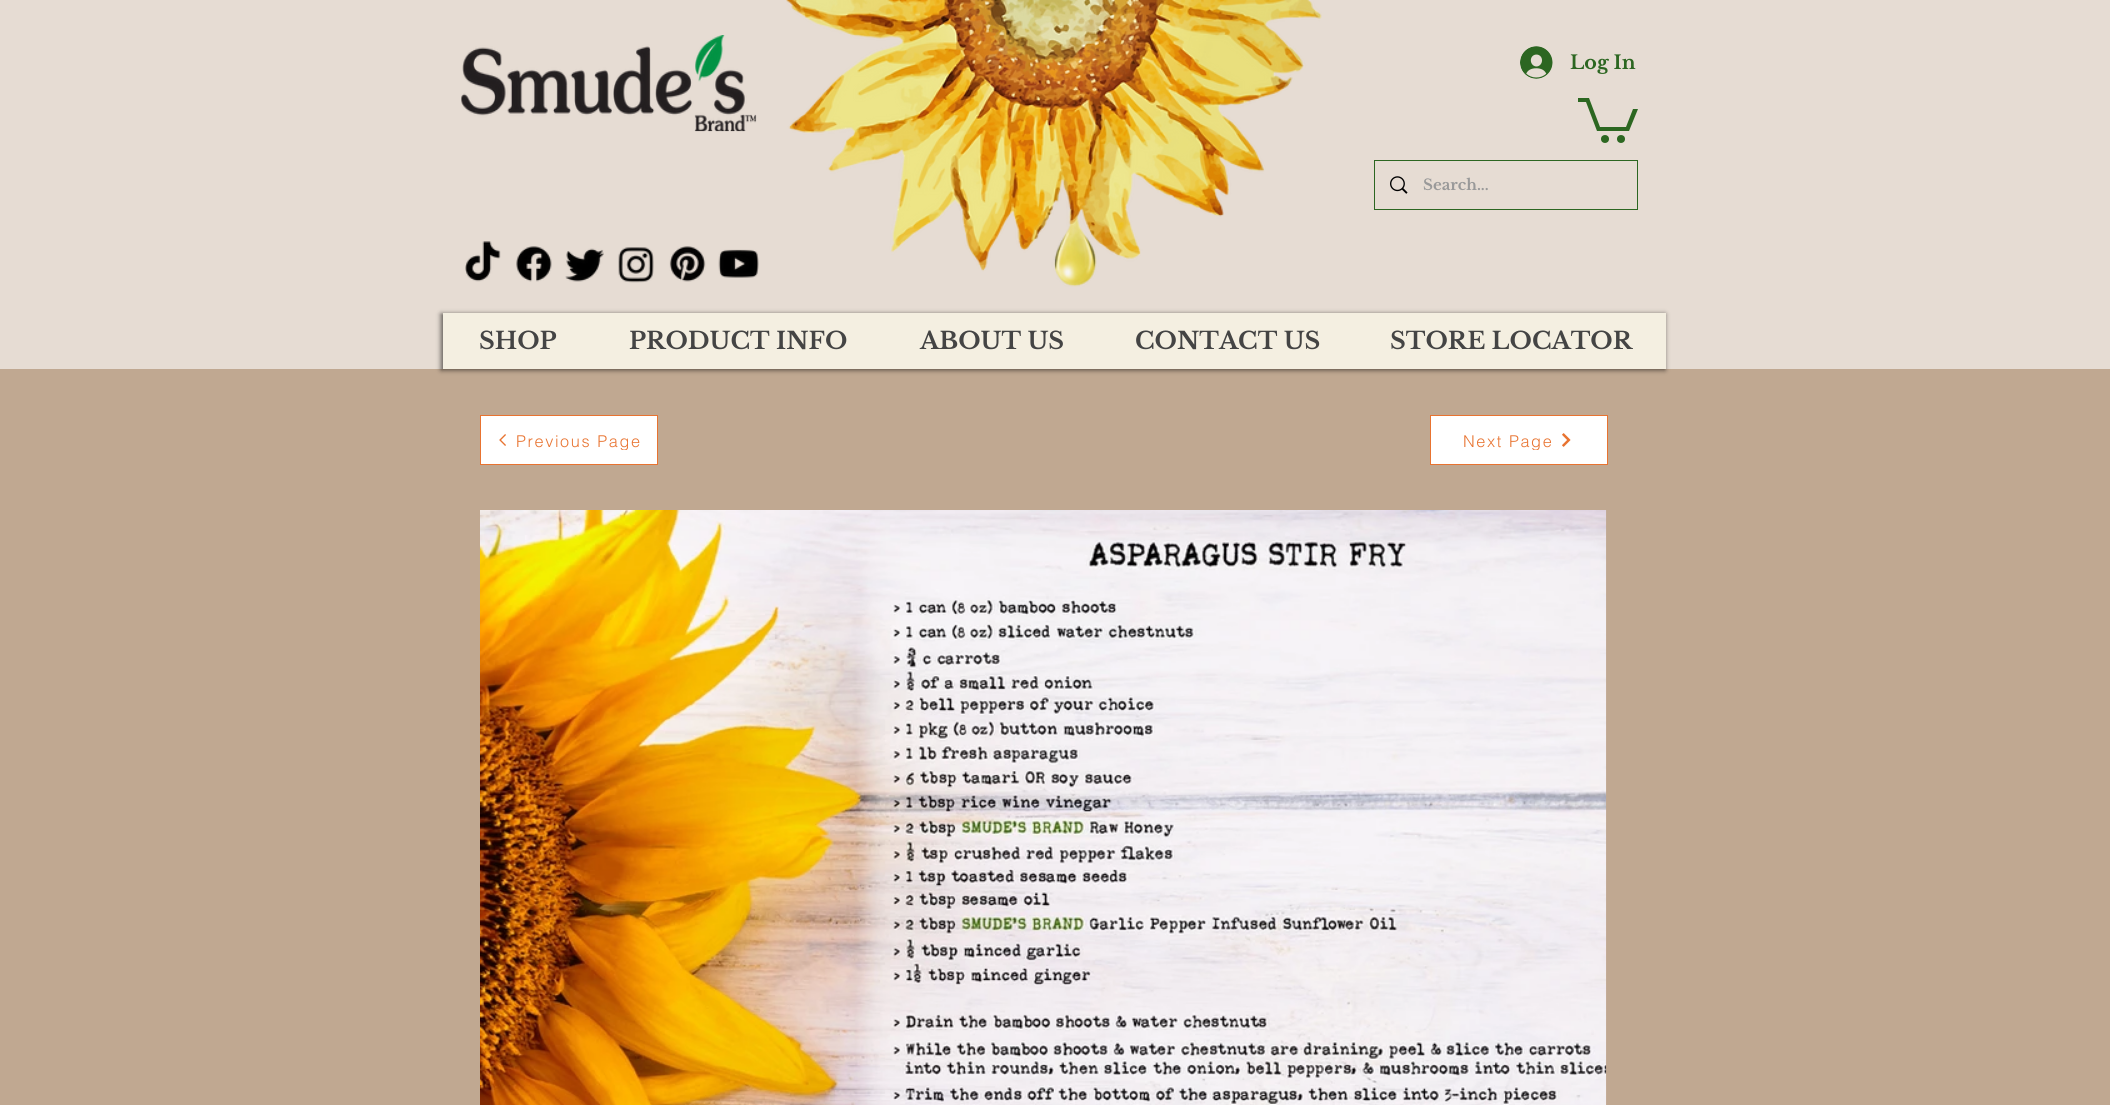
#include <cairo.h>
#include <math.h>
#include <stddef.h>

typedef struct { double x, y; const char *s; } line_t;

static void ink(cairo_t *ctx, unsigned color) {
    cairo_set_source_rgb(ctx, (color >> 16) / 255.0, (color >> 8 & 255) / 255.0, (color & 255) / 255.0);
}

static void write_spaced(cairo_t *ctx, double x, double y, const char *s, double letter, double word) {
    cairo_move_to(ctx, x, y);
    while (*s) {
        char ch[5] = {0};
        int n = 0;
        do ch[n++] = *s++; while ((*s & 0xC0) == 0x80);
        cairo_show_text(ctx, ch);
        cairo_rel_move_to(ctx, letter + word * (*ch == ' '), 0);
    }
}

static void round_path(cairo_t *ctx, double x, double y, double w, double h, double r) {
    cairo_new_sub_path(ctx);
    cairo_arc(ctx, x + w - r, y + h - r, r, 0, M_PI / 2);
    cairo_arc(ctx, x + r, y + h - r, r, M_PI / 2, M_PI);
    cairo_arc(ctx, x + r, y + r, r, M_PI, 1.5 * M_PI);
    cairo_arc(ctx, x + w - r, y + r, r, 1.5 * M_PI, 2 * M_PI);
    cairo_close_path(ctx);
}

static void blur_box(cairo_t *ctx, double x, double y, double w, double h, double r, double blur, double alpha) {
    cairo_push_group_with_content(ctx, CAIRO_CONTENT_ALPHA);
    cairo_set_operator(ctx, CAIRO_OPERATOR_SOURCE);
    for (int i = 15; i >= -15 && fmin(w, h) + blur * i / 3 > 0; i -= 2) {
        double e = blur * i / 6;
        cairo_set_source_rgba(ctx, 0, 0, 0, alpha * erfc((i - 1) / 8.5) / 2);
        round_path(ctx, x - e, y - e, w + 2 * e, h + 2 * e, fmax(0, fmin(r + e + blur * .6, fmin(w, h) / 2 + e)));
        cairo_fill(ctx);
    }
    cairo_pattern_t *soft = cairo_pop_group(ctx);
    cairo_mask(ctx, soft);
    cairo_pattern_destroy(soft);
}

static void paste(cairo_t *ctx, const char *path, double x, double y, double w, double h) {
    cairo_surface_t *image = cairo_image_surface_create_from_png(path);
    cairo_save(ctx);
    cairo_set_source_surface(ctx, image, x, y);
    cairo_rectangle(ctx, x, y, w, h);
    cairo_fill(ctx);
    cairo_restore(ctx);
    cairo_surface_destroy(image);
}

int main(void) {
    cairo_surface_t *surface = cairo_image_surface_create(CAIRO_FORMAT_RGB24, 2110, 1105);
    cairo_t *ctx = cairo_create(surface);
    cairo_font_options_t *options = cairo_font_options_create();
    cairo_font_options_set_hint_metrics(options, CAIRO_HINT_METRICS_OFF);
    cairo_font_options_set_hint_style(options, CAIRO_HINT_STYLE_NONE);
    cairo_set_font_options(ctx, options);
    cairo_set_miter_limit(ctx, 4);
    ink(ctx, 0xC0A891);
    cairo_paint(ctx);
    ink(ctx, 0xE6DCD3);
    cairo_rectangle(ctx, 0, 0, 2110, 369);
    cairo_fill(ctx);
    paste(ctx, "media/1.png", 461, 35, 296, 97);
    paste(ctx, "media/2.png", 786, 0, 536, 287);
    paste(ctx, "media/3.png", 1520, 46, 33, 33);
    cairo_select_font_face(ctx, "Libre Baskerville", CAIRO_FONT_SLANT_NORMAL, CAIRO_FONT_WEIGHT_BOLD);
    cairo_set_font_size(ctx, 19);
    ink(ctx, 0x2C6621);
    cairo_move_to(ctx, 1570, 69);
    cairo_show_text(ctx, "Log In");
    ink(ctx, 0x2C6721);
    cairo_new_path(ctx);
    cairo_move_to(ctx, 1638, 109);
    cairo_line_to(ctx, 1629, 131);
    cairo_line_to(ctx, 1597, 131);
    cairo_line_to(ctx, 1586, 102);
    cairo_line_to(ctx, 1578, 102);
    cairo_line_to(ctx, 1578, 98);
    cairo_line_to(ctx, 1589, 98);
    cairo_line_to(ctx, 1600, 127);
    cairo_line_to(ctx, 1626, 127);
    cairo_line_to(ctx, 1633, 109);
    cairo_fill(ctx);
    cairo_arc(ctx, 1621, 139, 4, 0, 2 * M_PI);
    cairo_fill(ctx);
    cairo_arc(ctx, 1605, 139, 4, 0, 2 * M_PI);
    cairo_fill(ctx);
    cairo_rectangle(ctx, 1374.5, 160.5, 263, 49);
    ink(ctx, 0x2C6621);
    cairo_set_line_width(ctx, 1);
    cairo_stroke(ctx);
    paste(ctx, "media/4.png", 1390, 176, 18, 18);
    cairo_set_font_size(ctx, 15);
    ink(ctx, 0x999999);
    cairo_move_to(ctx, 1423, 190);
    cairo_show_text(ctx, "Search...");
    paste(ctx, "media/5.png", 465, 241, 36, 41);
    paste(ctx, "media/6.png", 516, 246, 36, 36);
    paste(ctx, "media/7.png", 565, 248, 39, 34);
    paste(ctx, "media/8.png", 618, 247, 36, 36);
    paste(ctx, "media/9.png", 669, 246, 37, 36);
    paste(ctx, "media/10.png", 718, 249, 41, 29);
    ink(ctx, 0x000000);
    blur_box(ctx, 441, 314, 1224, 56, 0, 2.5, 0.6);
    ink(ctx, 0xF4EFE1);
    cairo_rectangle(ctx, 443, 313, 1223, 56);
    cairo_fill(ctx);
    cairo_set_font_size(ctx, 23.75);
    ink(ctx, 0x444444);
    {
        static const line_t items[] = {
            {479, 349, "SHOP"},
            {629, 349, "PRODUCT INFO"},
            {920, 349, "ABOUT US"},
            {1135, 349, "CONTACT US"},
            {1390, 349, "STORE LOCATOR"},
        };
        for (size_t i = 0; i < sizeof items / sizeof *items; i++) {
            cairo_move_to(ctx, items[i].x, items[i].y);
            cairo_show_text(ctx, items[i].s);
        }
    }
    ink(ctx, 0xFFFFFF);
    cairo_rectangle(ctx, 480.5, 415.5, 177, 49);
    cairo_fill_preserve(ctx);
    ink(ctx, 0xE87330);
    cairo_stroke(ctx);
    paste(ctx, "media/11.png", 499, 434, 7, 12);
    cairo_save(ctx);
    cairo_rectangle(ctx, 516, 430, 125, 20);
    cairo_clip(ctx);
    cairo_select_font_face(ctx, "helvetica Light", CAIRO_FONT_SLANT_NORMAL, CAIRO_FONT_WEIGHT_NORMAL);
    cairo_set_font_size(ctx, 16.25);
    write_spaced(ctx, 516, 447, "Previous Page", 1.6, 0);
    cairo_restore(ctx);
    ink(ctx, 0xFFFFFF);
    cairo_rectangle(ctx, 1430.5, 415.5, 177, 49);
    cairo_fill_preserve(ctx);
    ink(ctx, 0xE87330);
    cairo_stroke(ctx);
    cairo_save(ctx);
    cairo_rectangle(ctx, 1464, 430, 90, 20);
    cairo_clip(ctx);
    cairo_select_font_face(ctx, "helvetica Light", CAIRO_FONT_SLANT_NORMAL, CAIRO_FONT_WEIGHT_NORMAL);
    cairo_set_font_size(ctx, 16.25);
    write_spaced(ctx, 1463, 447, "Next Page", 1.6, 0);
    cairo_restore(ctx);
    paste(ctx, "media/12.png", 1562, 433, 9, 14);
    paste(ctx, "media/13.png", 480, 510, 1127, 595);
    cairo_surface_write_to_png(surface, "image.png");
    cairo_font_options_destroy(options);
    cairo_destroy(ctx);
    cairo_surface_destroy(surface);
    return 0;
}
